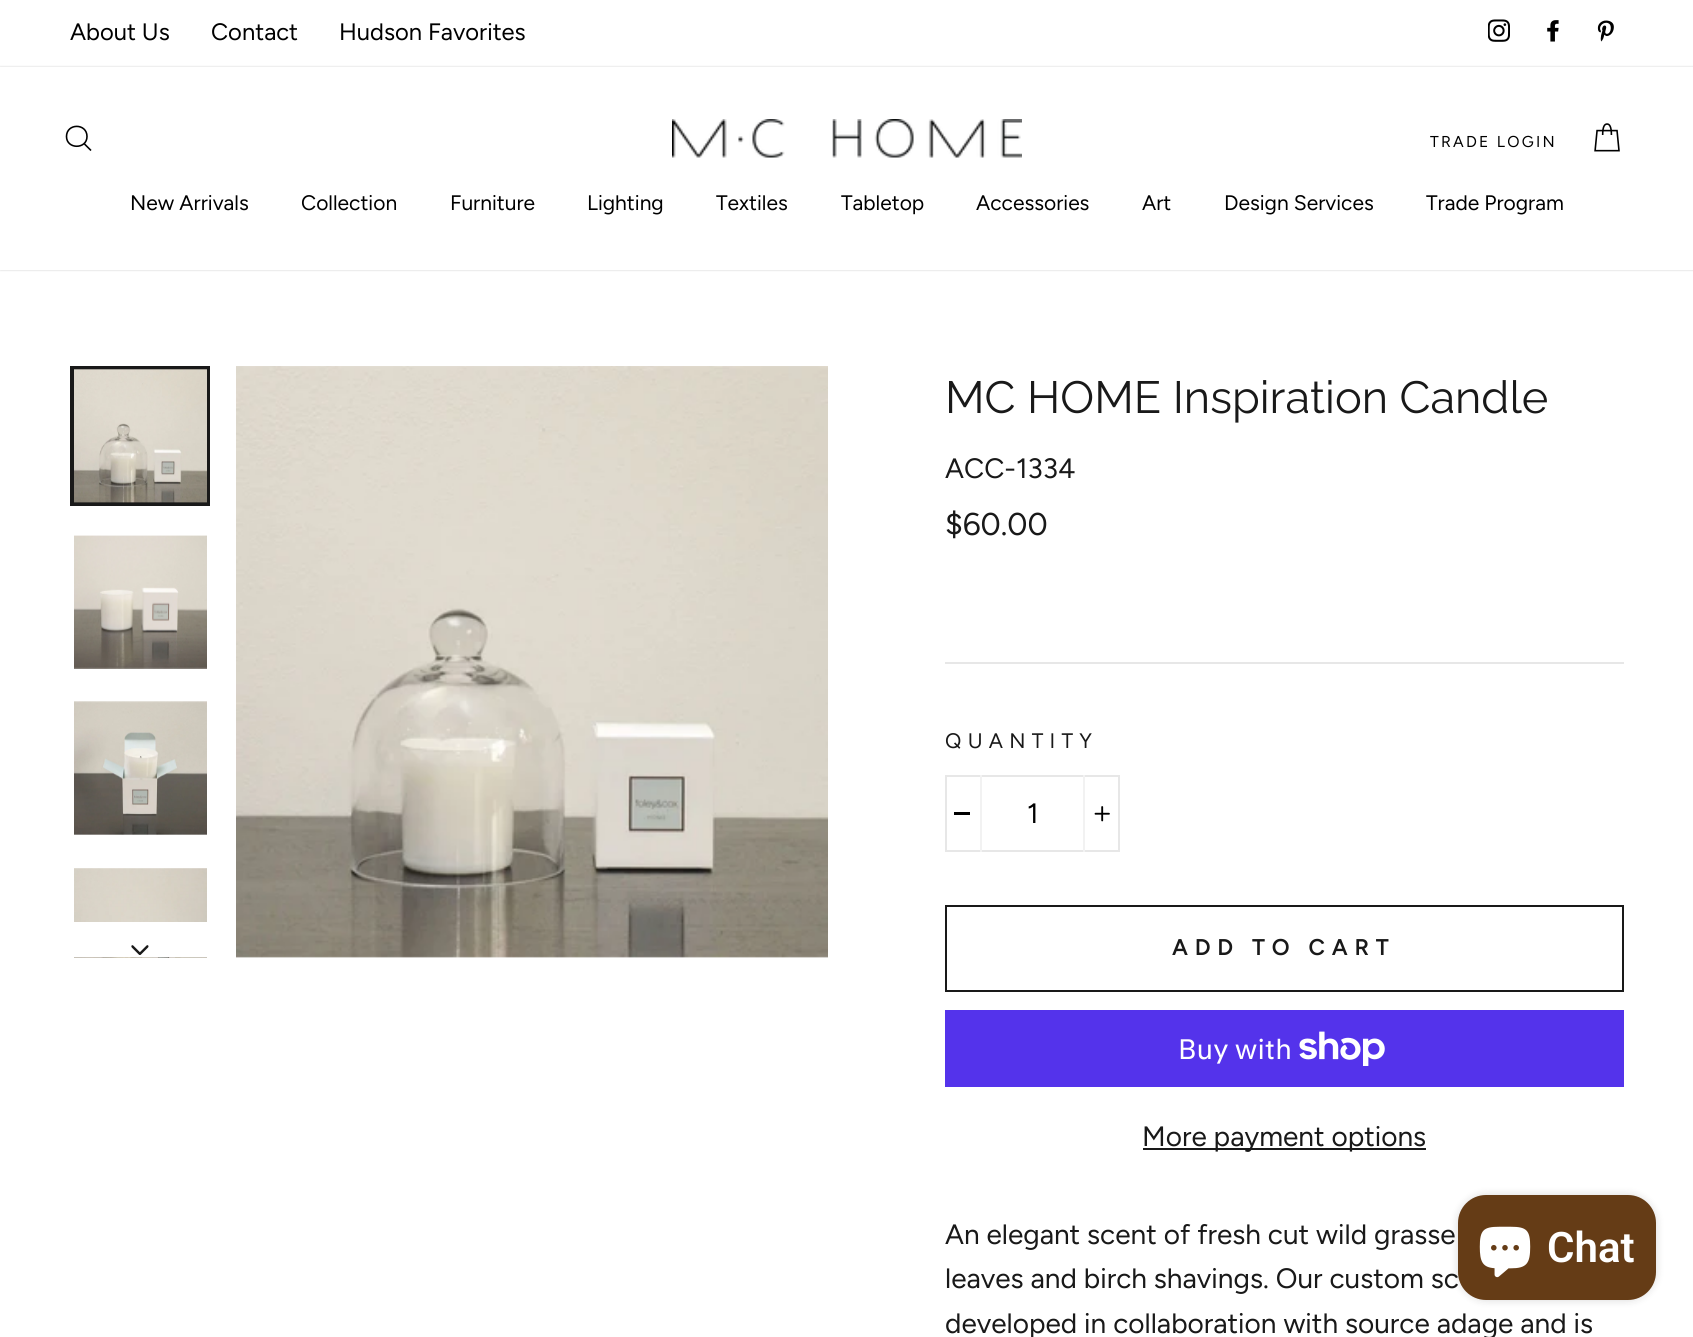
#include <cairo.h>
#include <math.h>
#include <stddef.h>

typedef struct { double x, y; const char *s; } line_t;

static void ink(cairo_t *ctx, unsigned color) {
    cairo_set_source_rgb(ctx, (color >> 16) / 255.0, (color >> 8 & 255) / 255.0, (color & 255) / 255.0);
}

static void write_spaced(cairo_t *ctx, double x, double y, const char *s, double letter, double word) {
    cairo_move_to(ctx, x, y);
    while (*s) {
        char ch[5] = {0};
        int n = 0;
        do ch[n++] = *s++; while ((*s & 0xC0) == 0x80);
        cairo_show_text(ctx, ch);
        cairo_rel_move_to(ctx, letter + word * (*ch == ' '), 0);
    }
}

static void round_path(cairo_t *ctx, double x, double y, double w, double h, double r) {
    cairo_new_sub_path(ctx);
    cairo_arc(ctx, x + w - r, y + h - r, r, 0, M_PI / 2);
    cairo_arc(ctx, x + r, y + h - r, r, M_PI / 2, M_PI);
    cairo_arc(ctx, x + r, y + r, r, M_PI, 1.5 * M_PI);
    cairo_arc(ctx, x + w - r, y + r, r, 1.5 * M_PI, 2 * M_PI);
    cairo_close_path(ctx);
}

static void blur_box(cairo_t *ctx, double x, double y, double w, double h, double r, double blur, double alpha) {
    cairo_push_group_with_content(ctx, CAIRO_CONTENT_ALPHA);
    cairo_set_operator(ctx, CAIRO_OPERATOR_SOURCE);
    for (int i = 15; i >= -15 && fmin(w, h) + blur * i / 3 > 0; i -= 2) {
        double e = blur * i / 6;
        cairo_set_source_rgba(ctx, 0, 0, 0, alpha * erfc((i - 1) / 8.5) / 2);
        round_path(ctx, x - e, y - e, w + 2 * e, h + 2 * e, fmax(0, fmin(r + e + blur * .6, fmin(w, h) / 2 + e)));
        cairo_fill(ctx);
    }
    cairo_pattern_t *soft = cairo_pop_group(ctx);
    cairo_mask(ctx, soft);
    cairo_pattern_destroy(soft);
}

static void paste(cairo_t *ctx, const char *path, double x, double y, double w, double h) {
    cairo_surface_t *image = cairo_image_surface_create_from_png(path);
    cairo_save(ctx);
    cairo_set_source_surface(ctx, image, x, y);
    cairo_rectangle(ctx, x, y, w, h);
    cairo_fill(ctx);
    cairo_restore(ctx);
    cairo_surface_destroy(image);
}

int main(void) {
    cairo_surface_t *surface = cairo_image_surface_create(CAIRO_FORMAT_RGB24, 1693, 1337);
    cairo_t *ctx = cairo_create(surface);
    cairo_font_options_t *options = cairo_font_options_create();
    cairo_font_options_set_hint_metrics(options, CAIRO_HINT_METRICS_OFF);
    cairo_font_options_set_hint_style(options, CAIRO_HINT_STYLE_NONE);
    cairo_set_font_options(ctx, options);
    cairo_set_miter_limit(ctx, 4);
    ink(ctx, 0xFFFFFF);
    cairo_paint(ctx);
    cairo_select_font_face(ctx, "Figtree", CAIRO_FONT_SLANT_NORMAL, CAIRO_FONT_WEIGHT_NORMAL);
    cairo_set_font_size(ctx, 23.75);
    ink(ctx, 0x000000);
    {
        static const line_t items[] = {
            {70, 40, "About Us"},
            {211, 40, "Contact"},
            {339, 40, "Hudson Favorites"},
        };
        for (size_t i = 0; i < sizeof items / sizeof *items; i++) {
            cairo_move_to(ctx, items[i].x, items[i].y);
            cairo_show_text(ctx, items[i].s);
        }
    }
    paste(ctx, "media/1.png", 1488, 19, 22, 23);
    paste(ctx, "media/2.png", 1547, 20, 12, 22);
    paste(ctx, "media/3.png", 1597, 20, 17, 22);
    ink(ctx, 0x000000);
    blur_box(ctx, 0, 67, 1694, 203, 0, 1, 0.2);
    ink(ctx, 0xFFFFFF);
    cairo_rectangle(ctx, 0, 67, 1693, 203);
    cairo_fill(ctx);
    cairo_new_path(ctx);
    cairo_move_to(ctx, 87, 136.5);
    cairo_curve_to(ctx, 87, 149.5, 66.5, 149.5, 66.5, 136.5);
    cairo_curve_to(ctx, 66.5, 123, 87, 123, 87, 136.5);
    cairo_close_path(ctx);
    cairo_move_to(ctx, 91, 150.5);
    cairo_line_to(ctx, 84, 143.5);
    ink(ctx, 0x000000);
    cairo_set_line_width(ctx, 1.6);
    cairo_stroke(ctx);
    paste(ctx, "media/4.png", 672, 119, 350, 39);
    cairo_set_font_size(ctx, 15.75);
    write_spaced(ctx, 1430, 147, "TRADE LOGIN", 2.25, 0);
    paste(ctx, "media/5.png", 1594, 123, 26, 29);
    cairo_set_font_size(ctx, 21);
    {
        static const line_t items[] = {
            {130, 210, "New Arrivals"},
            {301, 210, "Collection"},
            {450, 210, "Furniture"},
            {587, 210, "Lighting"},
            {716, 210, "Textiles"},
            {841, 210, "Tabletop"},
            {976, 210, "Accessories"},
            {1142, 210, "Art"},
            {1224, 210, "Design Services"},
            {1426, 210, "Trade Program"},
        };
        for (size_t i = 0; i < sizeof items / sizeof *items; i++) {
            cairo_move_to(ctx, items[i].x, items[i].y);
            cairo_show_text(ctx, items[i].s);
        }
    }
    cairo_rectangle(ctx, 72, 368, 136, 136);
    ink(ctx, 0x191919);
    cairo_set_line_width(ctx, 4);
    cairo_stroke(ctx);
    paste(ctx, "media/6.png", 74, 369, 133, 134);
    paste(ctx, "media/7.png", 74, 535, 133, 134);
    paste(ctx, "media/8.png", 74, 701, 133, 134);
    paste(ctx, "media/9.png", 74, 868, 133, 90);
    ink(ctx, 0xFFFFFF);
    cairo_rectangle(ctx, 74, 922, 133, 35);
    cairo_fill(ctx);
    paste(ctx, "media/10.png", 131, 945, 18, 10);
    paste(ctx, "media/11.png", 236, 366, 592, 592);
    cairo_select_font_face(ctx, "Raleway", CAIRO_FONT_SLANT_NORMAL, CAIRO_FONT_WEIGHT_NORMAL);
    cairo_set_font_size(ctx, 45.1);
    ink(ctx, 0x191919);
    cairo_move_to(ctx, 945, 413);
    cairo_show_text(ctx, "MC HOME Inspiration Candle");
    cairo_select_font_face(ctx, "Figtree", CAIRO_FONT_SLANT_NORMAL, CAIRO_FONT_WEIGHT_NORMAL);
    cairo_set_font_size(ctx, 28);
    cairo_move_to(ctx, 945, 478);
    cairo_show_text(ctx, "ACC-1334");
    cairo_set_font_size(ctx, 31.5);
    cairo_move_to(ctx, 945, 535);
    cairo_show_text(ctx, "$60.00");
    ink(ctx, 0xE7E7E7);
    cairo_rectangle(ctx, 945, 662, 679, 2);
    cairo_fill(ctx);
    cairo_set_font_size(ctx, 21);
    ink(ctx, 0x191919);
    write_spaced(ctx, 945, 748, "QUANTITY", 6.25, 0);
    cairo_rectangle(ctx, 946, 776, 173, 75);
    ink(ctx, 0xE7E7E7);
    cairo_set_line_width(ctx, 2);
    cairo_stroke(ctx);
    ink(ctx, 0xF2F2F2);
    cairo_rectangle(ctx, 980, 775, 2, 77);
    cairo_fill(ctx);
    ink(ctx, 0x000000);
    cairo_rectangle(ctx, 954, 812, 16, 3);
    cairo_fill(ctx);
    cairo_set_font_size(ctx, 28);
    cairo_move_to(ctx, 1027, 823);
    cairo_show_text(ctx, "1");
    ink(ctx, 0xF2F2F2);
    cairo_rectangle(ctx, 1083, 775, 2, 77);
    cairo_fill(ctx);
    paste(ctx, "media/12.png", 1094, 806, 16, 16);
    cairo_rectangle(ctx, 946, 906, 677, 85);
    ink(ctx, 0x191919);
    cairo_stroke(ctx);
    cairo_select_font_face(ctx, "Figtree SemiBold", CAIRO_FONT_SLANT_NORMAL, CAIRO_FONT_WEIGHT_NORMAL);
    cairo_set_font_size(ctx, 22.75);
    write_spaced(ctx, 1172, 955, "ADD TO CART", 6.75, 0);
    ink(ctx, 0x5433EB);
    cairo_rectangle(ctx, 945, 1010, 679, 77);
    cairo_fill(ctx);
    cairo_select_font_face(ctx, "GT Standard", CAIRO_FONT_SLANT_NORMAL, CAIRO_FONT_WEIGHT_NORMAL);
    cairo_set_font_size(ctx, 28);
    ink(ctx, 0xFFFFFF);
    cairo_move_to(ctx, 1178, 1059);
    cairo_show_text(ctx, "Buy with");
    paste(ctx, "media/13.png", 1299, 1031, 86, 35);
    ink(ctx, 0x191919);
    cairo_rectangle(ctx, 1143, 1148, 283, 2);
    cairo_fill(ctx);
    cairo_select_font_face(ctx, "Figtree", CAIRO_FONT_SLANT_NORMAL, CAIRO_FONT_WEIGHT_NORMAL);
    {
        static const line_t items[] = {
            {1142, 1146, "More payment options"},
            {945, 1244, "An elegant scent of fresh cut wild grasse"},
            {945, 1288, "leaves and birch shavings. Our custom sc"},
            {945, 1333, "developed in collaboration with source adage and is"},
        };
        for (size_t i = 0; i < sizeof items / sizeof *items; i++) {
            cairo_move_to(ctx, items[i].x, items[i].y);
            cairo_show_text(ctx, items[i].s);
        }
    }
    ink(ctx, 0x000000);
    blur_box(ctx, 1458, 1195, 198, 105, 28, 4.5, 0.15);
    ink(ctx, 0x653C16);
    round_path(ctx, 1458, 1195, 198, 105, 28);
    cairo_fill(ctx);
    paste(ctx, "media/14.png", 1479, 1226, 52, 52);
    cairo_select_font_face(ctx, "Roboto SemiBold", CAIRO_FONT_SLANT_NORMAL, CAIRO_FONT_WEIGHT_NORMAL);
    cairo_set_font_size(ctx, 42);
    ink(ctx, 0xFFFFFF);
    cairo_move_to(ctx, 1547, 1262);
    cairo_show_text(ctx, "Chat");
    cairo_surface_write_to_png(surface, "image.png");
    cairo_font_options_destroy(options);
    cairo_destroy(ctx);
    cairo_surface_destroy(surface);
    return 0;
}
